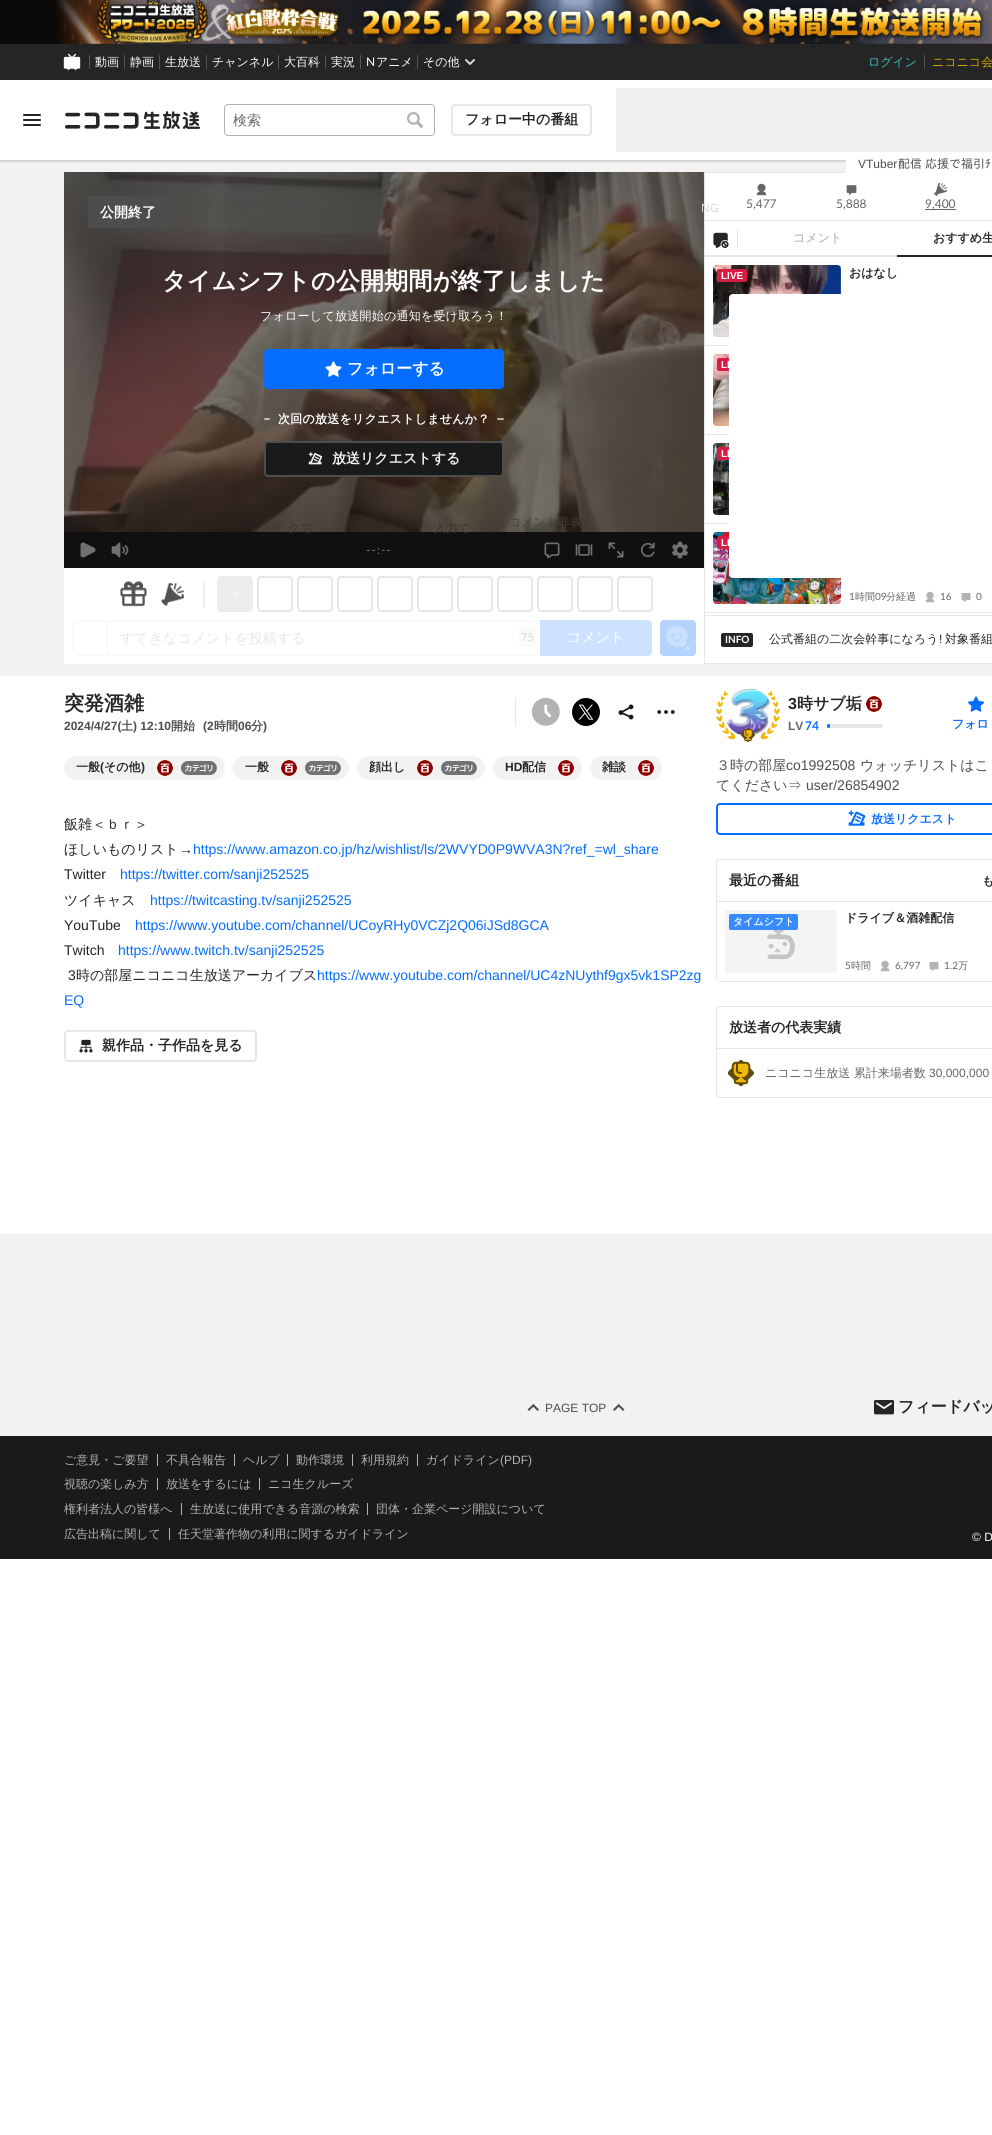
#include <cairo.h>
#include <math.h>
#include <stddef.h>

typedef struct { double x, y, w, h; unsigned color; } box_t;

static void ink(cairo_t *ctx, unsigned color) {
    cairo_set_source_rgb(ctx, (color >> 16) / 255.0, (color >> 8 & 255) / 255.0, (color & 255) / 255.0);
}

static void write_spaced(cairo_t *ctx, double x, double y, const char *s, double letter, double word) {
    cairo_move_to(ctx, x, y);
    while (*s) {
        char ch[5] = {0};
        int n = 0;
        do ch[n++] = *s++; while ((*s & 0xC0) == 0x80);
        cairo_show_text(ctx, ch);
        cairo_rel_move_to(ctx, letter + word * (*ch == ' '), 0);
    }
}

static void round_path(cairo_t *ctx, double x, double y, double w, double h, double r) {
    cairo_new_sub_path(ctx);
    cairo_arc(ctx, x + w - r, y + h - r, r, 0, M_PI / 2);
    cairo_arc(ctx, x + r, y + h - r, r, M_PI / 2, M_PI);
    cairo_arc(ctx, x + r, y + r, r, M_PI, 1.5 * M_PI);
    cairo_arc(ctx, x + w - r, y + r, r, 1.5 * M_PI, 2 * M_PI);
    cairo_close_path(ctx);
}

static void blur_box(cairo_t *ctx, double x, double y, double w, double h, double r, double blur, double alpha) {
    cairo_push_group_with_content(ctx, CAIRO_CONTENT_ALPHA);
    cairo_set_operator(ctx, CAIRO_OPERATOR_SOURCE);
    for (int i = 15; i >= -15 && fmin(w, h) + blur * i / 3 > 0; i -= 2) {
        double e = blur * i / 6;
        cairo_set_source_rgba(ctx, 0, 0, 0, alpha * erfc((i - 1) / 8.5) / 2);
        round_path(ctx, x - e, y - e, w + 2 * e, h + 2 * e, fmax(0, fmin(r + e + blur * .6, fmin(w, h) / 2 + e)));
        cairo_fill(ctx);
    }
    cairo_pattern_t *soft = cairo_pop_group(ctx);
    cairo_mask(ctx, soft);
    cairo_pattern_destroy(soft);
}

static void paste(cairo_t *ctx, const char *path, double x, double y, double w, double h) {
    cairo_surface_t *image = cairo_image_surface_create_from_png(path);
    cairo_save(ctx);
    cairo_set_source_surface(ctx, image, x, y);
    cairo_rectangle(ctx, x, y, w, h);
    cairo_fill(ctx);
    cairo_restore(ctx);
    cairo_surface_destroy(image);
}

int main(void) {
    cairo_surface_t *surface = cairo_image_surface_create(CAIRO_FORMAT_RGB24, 992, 2135);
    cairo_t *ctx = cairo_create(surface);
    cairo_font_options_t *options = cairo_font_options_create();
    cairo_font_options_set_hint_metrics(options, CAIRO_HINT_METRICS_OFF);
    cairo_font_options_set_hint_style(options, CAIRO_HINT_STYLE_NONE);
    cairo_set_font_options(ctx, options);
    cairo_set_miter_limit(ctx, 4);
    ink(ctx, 0xFFFFFF);
    cairo_paint(ctx);
    ink(ctx, 0xF2F2F2);
    cairo_rectangle(ctx, 0, 160, 992, 1276);
    cairo_fill(ctx);
    ink(ctx, 0x1A1A1A);
    blur_box(ctx, 0, 81, 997, 80, 0, 1.5, 0.25);
    ink(ctx, 0x252525);
    cairo_rectangle(ctx, 0, 44, 992, 36);
    cairo_fill(ctx);
    ink(ctx, 0x0B0909);
    cairo_rectangle(ctx, 0, 0, 992, 44);
    cairo_fill(ctx);
    paste(ctx, "media/1.png", 56, 0, 936, 44);
    paste(ctx, "media/2.png", 63, 53, 18, 18);
    ink(ctx, 0x555555);
    cairo_rectangle(ctx, 89, 55, 1, 14);
    cairo_fill(ctx);
    cairo_select_font_face(ctx, "WenQuanYi Zen Hei Medium", CAIRO_FONT_SLANT_NORMAL, CAIRO_FONT_WEIGHT_NORMAL);
    cairo_set_font_size(ctx, 12);
    ink(ctx, 0xFFFFFF);
    cairo_move_to(ctx, 95, 66);
    cairo_show_text(ctx, "動画");
    ink(ctx, 0x555555);
    cairo_rectangle(ctx, 124, 55, 1, 14);
    cairo_fill(ctx);
    ink(ctx, 0xFFFFFF);
    cairo_move_to(ctx, 130, 66);
    cairo_show_text(ctx, "静画");
    ink(ctx, 0x555555);
    cairo_rectangle(ctx, 159, 55, 1, 14);
    cairo_fill(ctx);
    ink(ctx, 0xFFFFFF);
    cairo_move_to(ctx, 165, 66);
    cairo_show_text(ctx, "生放送");
    ink(ctx, 0x555555);
    cairo_rectangle(ctx, 206, 55, 1, 14);
    cairo_fill(ctx);
    ink(ctx, 0xFFFFFF);
    cairo_move_to(ctx, 212, 66);
    cairo_show_text(ctx, "チャンネル");
    ink(ctx, 0x555555);
    cairo_rectangle(ctx, 278, 55, 1, 14);
    cairo_fill(ctx);
    ink(ctx, 0xFFFFFF);
    cairo_move_to(ctx, 284, 66);
    cairo_show_text(ctx, "大百科");
    ink(ctx, 0x555555);
    cairo_rectangle(ctx, 325, 55, 1, 14);
    cairo_fill(ctx);
    ink(ctx, 0xFFFFFF);
    cairo_move_to(ctx, 331, 66);
    cairo_show_text(ctx, "実況");
    ink(ctx, 0x555555);
    cairo_rectangle(ctx, 360, 55, 1, 14);
    cairo_fill(ctx);
    cairo_select_font_face(ctx, "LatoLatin", CAIRO_FONT_SLANT_NORMAL, CAIRO_FONT_WEIGHT_NORMAL);
    ink(ctx, 0xFFFFFF);
    cairo_move_to(ctx, 366, 66);
    cairo_show_text(ctx, "N");
    cairo_select_font_face(ctx, "WenQuanYi Zen Hei Medium", CAIRO_FONT_SLANT_NORMAL, CAIRO_FONT_WEIGHT_NORMAL);
    cairo_move_to(ctx, 376, 66);
    cairo_show_text(ctx, "アニメ");
    ink(ctx, 0x555555);
    cairo_rectangle(ctx, 417, 55, 1, 14);
    cairo_fill(ctx);
    ink(ctx, 0xFFFFFF);
    cairo_move_to(ctx, 423, 66);
    cairo_show_text(ctx, "その他");
    paste(ctx, "media/3.png", 465, 59, 10, 6);
    ink(ctx, 0x39C4C1);
    cairo_move_to(ctx, 868, 66);
    cairo_show_text(ctx, "ログイン");
    ink(ctx, 0x555555);
    cairo_rectangle(ctx, 924, 55, 1, 14);
    cairo_fill(ctx);
    ink(ctx, 0xD9A300);
    cairo_move_to(ctx, 932, 66);
    cairo_show_text(ctx, "ニコニコ会");
    ink(ctx, 0xFFFFFF);
    cairo_rectangle(ctx, 0, 80, 992, 80);
    cairo_fill(ctx);
    paste(ctx, "media/4.png", 23, 114, 18, 12);
    paste(ctx, "media/5.png", 65, 111, 135, 18);
    round_path(ctx, 224.5, 104.5, 210, 31, 3.5);
    ink(ctx, 0xB3B3B3);
    cairo_set_line_width(ctx, 1);
    cairo_stroke(ctx);
    cairo_set_font_size(ctx, 14);
    ink(ctx, 0x666666);
    cairo_move_to(ctx, 233, 125);
    cairo_show_text(ctx, "検索");
    paste(ctx, "media/6.png", 407, 112, 16, 16);
    round_path(ctx, 452, 105, 139, 30, 3);
    ink(ctx, 0xE6E6E6);
    cairo_set_line_width(ctx, 2);
    cairo_stroke(ctx);
    cairo_select_font_face(ctx, "WenQuanYi Zen Hei", CAIRO_FONT_SLANT_NORMAL, CAIRO_FONT_WEIGHT_BOLD);
    ink(ctx, 0x252525);
    cairo_move_to(ctx, 465, 124);
    cairo_show_text(ctx, "フォロー中の番組");
    ink(ctx, 0xEFEFEF);
    cairo_rectangle(ctx, 616, 88, 376, 64);
    cairo_fill(ctx);
    ink(ctx, 0x101010);
    cairo_rectangle(ctx, 64, 532, 640, 36);
    cairo_fill(ctx);
    paste(ctx, "media/7.png", 64, 172, 640, 360);
    ink(ctx, 0x4D4D4D);
    round_path(ctx, 88, 196, 80, 32, 2);
    cairo_fill(ctx);
    ink(ctx, 0xFFFFFF);
    cairo_move_to(ctx, 100, 217);
    cairo_show_text(ctx, "公開終了");
    cairo_set_font_size(ctx, 24);
    write_spaced(ctx, 162, 289, "タイムシフトの公開期間が終了しました", 0.25, 0);
    cairo_select_font_face(ctx, "WenQuanYi Zen Hei Medium", CAIRO_FONT_SLANT_NORMAL, CAIRO_FONT_WEIGHT_NORMAL);
    cairo_set_font_size(ctx, 12);
    write_spaced(ctx, 260, 320, "フォローして放送開始の通知を受け取ろう！", 0.25, 0);
    ink(ctx, 0x056DFF);
    round_path(ctx, 264, 349, 240, 40, 4);
    cairo_fill(ctx);
    paste(ctx, "media/8.png", 325, 361, 17, 16);
    cairo_select_font_face(ctx, "WenQuanYi Zen Hei", CAIRO_FONT_SLANT_NORMAL, CAIRO_FONT_WEIGHT_BOLD);
    cairo_set_font_size(ctx, 16);
    ink(ctx, 0xFFFFFF);
    cairo_move_to(ctx, 347, 374);
    cairo_show_text(ctx, "フォローする");
    ink(ctx, 0xBEBBB8);
    round_path(ctx, 264, 418, 6, 2, 1);
    cairo_fill(ctx);
    cairo_set_font_size(ctx, 12);
    ink(ctx, 0xFFFFFF);
    write_spaced(ctx, 278, 423, "次回の放送をリクエストしませんか？", 0.25, 0);
    cairo_set_source_rgba(ctx, 1, 1, 1, 0.6);
    round_path(ctx, 497, 418, 7, 2, 1);
    cairo_fill(ctx);
    ink(ctx, 0x1A1A1A);
    round_path(ctx, 265, 442, 238, 34, 3);
    cairo_fill_preserve(ctx);
    ink(ctx, 0x4D4D4D);
    cairo_stroke(ctx);
    paste(ctx, "media/9.png", 308, 452, 15, 13);
    cairo_set_font_size(ctx, 14);
    ink(ctx, 0xF2F2F2);
    cairo_move_to(ctx, 332, 463);
    cairo_show_text(ctx, "放送リクエストする");
    paste(ctx, "media/10.png", 80, 542, 16, 16);
    paste(ctx, "media/11.png", 111, 542, 18, 16);
    cairo_select_font_face(ctx, "WenQuanYi Zen Hei Medium", CAIRO_FONT_SLANT_NORMAL, CAIRO_FONT_WEIGHT_NORMAL);
    cairo_set_font_size(ctx, 12);
    ink(ctx, 0x3A332B);
    cairo_move_to(ctx, 288, 532);
    cairo_show_text(ctx, "クで");
    cairo_move_to(ctx, 434, 532);
    cairo_show_text(ctx, "入力で");
    cairo_select_font_face(ctx, "LatoLatin", CAIRO_FONT_SLANT_NORMAL, CAIRO_FONT_WEIGHT_NORMAL);
    ink(ctx, 0x767676);
    write_spaced(ctx, 366, 554, "--:--", 1, 0);
    cairo_select_font_face(ctx, "WenQuanYi Zen Hei Medium", CAIRO_FONT_SLANT_NORMAL, CAIRO_FONT_WEIGHT_NORMAL);
    ink(ctx, 0x433D35);
    cairo_move_to(ctx, 509, 526);
    cairo_show_text(ctx, "コメント非表");
    paste(ctx, "media/12.png", 544, 542, 16, 17);
    paste(ctx, "media/13.png", 575, 544, 18, 12);
    paste(ctx, "media/14.png", 608, 542, 16, 16);
    paste(ctx, "media/15.png", 640, 542, 15, 16);
    paste(ctx, "media/16.png", 672, 541, 16, 18);
    ink(ctx, 0xFFFFFF);
    cairo_rectangle(ctx, 64, 568, 640, 96);
    cairo_fill(ctx);
    paste(ctx, "media/17.png", 120, 581, 27, 26);
    paste(ctx, "media/18.png", 161, 583, 24, 23);
    ink(ctx, 0xECECEC);
    cairo_rectangle(ctx, 203, 581, 2, 26);
    cairo_fill(ctx);
    round_path(ctx, 217, 576, 36, 36, 4);
    cairo_fill(ctx);
    paste(ctx, "media/19.png", 230, 589, 10, 10);
    round_path(ctx, 258, 577, 34, 34, 3);
    ink(ctx, 0xE6E6E6);
    cairo_stroke(ctx);
    round_path(ctx, 298, 577, 34, 34, 3);
    cairo_stroke(ctx);
    round_path(ctx, 338, 577, 34, 34, 3);
    cairo_stroke(ctx);
    round_path(ctx, 378, 577, 34, 34, 3);
    cairo_stroke(ctx);
    round_path(ctx, 418, 577, 34, 34, 3);
    cairo_stroke(ctx);
    round_path(ctx, 458, 577, 34, 34, 3);
    cairo_stroke(ctx);
    round_path(ctx, 498, 577, 34, 34, 3);
    cairo_stroke(ctx);
    round_path(ctx, 538, 577, 34, 34, 3);
    cairo_stroke(ctx);
    round_path(ctx, 578, 577, 34, 34, 3);
    cairo_stroke(ctx);
    round_path(ctx, 618, 577, 34, 34, 3);
    cairo_stroke(ctx);
    ink(ctx, 0xFAFAFA);
    cairo_set_fill_rule(ctx, CAIRO_FILL_RULE_EVEN_ODD);
    cairo_new_path(ctx);
    cairo_move_to(ctx, 76, 620);
    cairo_line_to(ctx, 106, 620);
    cairo_line_to(ctx, 106, 656);
    cairo_line_to(ctx, 76, 656);
    cairo_curve_to(ctx, 74, 656, 72, 654, 72, 652);
    cairo_line_to(ctx, 72, 624);
    cairo_curve_to(ctx, 72, 622, 74, 620, 76, 620);
    cairo_close_path(ctx);
    cairo_move_to(ctx, 76, 622);
    cairo_line_to(ctx, 106, 622);
    cairo_line_to(ctx, 106, 654);
    cairo_line_to(ctx, 76, 654);
    cairo_curve_to(ctx, 75, 654, 74, 653, 74, 652);
    cairo_line_to(ctx, 74, 624);
    cairo_curve_to(ctx, 74, 623, 75, 622, 76, 622);
    cairo_close_path(ctx);
    cairo_fill(ctx);
    {
        static const box_t items[] = {
            {106, 620, 434, 2, 0xFAFAFA},
            {106, 654, 434, 2, 0xFAFAFA},
            {106, 620, 2, 36, 0xFAFAFA},
        };
        for (size_t i = 0; i < sizeof items / sizeof *items; i++) {
            ink(ctx, items[i].color);
            cairo_rectangle(ctx, items[i].x, items[i].y, items[i].w, items[i].h);
            cairo_fill(ctx);
        }
    }
    cairo_set_font_size(ctx, 14);
    ink(ctx, 0xE7E7E7);
    cairo_move_to(ctx, 120, 643);
    cairo_show_text(ctx, "すてきなコメントを投稿する");
    ink(ctx, 0xFAFAFA);
    round_path(ctx, 519, 628, 17, 19, 2);
    cairo_fill(ctx);
    cairo_select_font_face(ctx, "LatoLatin", CAIRO_FONT_SLANT_NORMAL, CAIRO_FONT_WEIGHT_NORMAL);
    cairo_set_font_size(ctx, 11);
    ink(ctx, 0xDBDBDB);
    cairo_move_to(ctx, 521, 641);
    cairo_show_text(ctx, "75");
    ink(ctx, 0xCDE2FF);
    cairo_new_path(ctx);
    cairo_move_to(ctx, 540, 620);
    cairo_line_to(ctx, 648, 620);
    cairo_curve_to(ctx, 650, 620, 652, 622, 652, 624);
    cairo_line_to(ctx, 652, 652);
    cairo_curve_to(ctx, 652, 654, 650, 656, 648, 656);
    cairo_line_to(ctx, 540, 656);
    cairo_close_path(ctx);
    cairo_fill(ctx);
    cairo_select_font_face(ctx, "WenQuanYi Zen Hei Medium", CAIRO_FONT_SLANT_NORMAL, CAIRO_FONT_WEIGHT_NORMAL);
    cairo_set_font_size(ctx, 14);
    ink(ctx, 0xFFFFFF);
    cairo_move_to(ctx, 567, 642);
    cairo_show_text(ctx, "コメント");
    ink(ctx, 0xB4D3FF);
    round_path(ctx, 660, 620, 36, 36, 4);
    cairo_fill(ctx);
    paste(ctx, "media/20.png", 666, 626, 24, 24);
    ink(ctx, 0xFFFFFF);
    cairo_rectangle(ctx, 704.5, 172.5, 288, 491);
    cairo_fill_preserve(ctx);
    ink(ctx, 0xE6E6E6);
    cairo_set_line_width(ctx, 1);
    cairo_stroke(ctx);
    cairo_rectangle(ctx, 705, 220, 287, 1);
    cairo_fill(ctx);
    paste(ctx, "media/21.png", 756, 183, 11, 13);
    cairo_select_font_face(ctx, "LatoLatin", CAIRO_FONT_SLANT_NORMAL, CAIRO_FONT_WEIGHT_NORMAL);
    cairo_set_font_size(ctx, 12);
    ink(ctx, 0x666666);
    cairo_move_to(ctx, 746, 208);
    cairo_show_text(ctx, "5,477");
    paste(ctx, "media/22.png", 846, 185, 11, 10);
    cairo_move_to(ctx, 836, 208);
    cairo_show_text(ctx, "5,888");
    ink(ctx, 0xFFFFFF);
    round_path(ctx, 846, 152, 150, 24, 4);
    cairo_fill(ctx);
    cairo_select_font_face(ctx, "Liberation Sans", CAIRO_FONT_SLANT_NORMAL, CAIRO_FONT_WEIGHT_NORMAL);
    ink(ctx, 0x4D4D4D);
    cairo_move_to(ctx, 858, 168);
    cairo_show_text(ctx, "VTuber");
    cairo_select_font_face(ctx, "IPAGothic", CAIRO_FONT_SLANT_NORMAL, CAIRO_FONT_WEIGHT_NORMAL);
    write_spaced(ctx, 898, 168, "配信 応援で福引ﾁ", 0, -3);
    paste(ctx, "media/23.png", 934, 183, 13, 13);
    ink(ctx, 0x666666);
    cairo_rectangle(ctx, 925, 209, 31, 1);
    cairo_fill(ctx);
    cairo_select_font_face(ctx, "LatoLatin", CAIRO_FONT_SLANT_NORMAL, CAIRO_FONT_WEIGHT_NORMAL);
    cairo_move_to(ctx, 925, 208);
    cairo_show_text(ctx, "9,400");
    cairo_select_font_face(ctx, "Liberation Sans", CAIRO_FONT_SLANT_NORMAL, CAIRO_FONT_WEIGHT_NORMAL);
    ink(ctx, 0xDBDBDB);
    cairo_move_to(ctx, 701, 212);
    cairo_show_text(ctx, "NG");
    paste(ctx, "media/24.png", 713, 232, 16, 16);
    ink(ctx, 0xE6E6E6);
    cairo_rectangle(ctx, 737, 230, 1, 18);
    cairo_fill(ctx);
    cairo_select_font_face(ctx, "WenQuanYi Zen Hei", CAIRO_FONT_SLANT_NORMAL, CAIRO_FONT_WEIGHT_BOLD);
    ink(ctx, 0xBEBEBE);
    cairo_move_to(ctx, 793, 242);
    cairo_show_text(ctx, "コメント");
    ink(ctx, 0x252525);
    cairo_move_to(ctx, 933, 242);
    cairo_show_text(ctx, "おすすめ生");
    {
        static const box_t items[] = {
            {897, 255, 95, 2, 0x252525},
            {705, 255, 192, 2, 0xE6E6E6},
            {705, 345, 24, 1, 0xE6E6E6},
        };
        for (size_t i = 0; i < sizeof items / sizeof *items; i++) {
            ink(ctx, items[i].color);
            cairo_rectangle(ctx, items[i].x, items[i].y, items[i].w, items[i].h);
            cairo_fill(ctx);
        }
    }
    paste(ctx, "media/25.png", 713, 265, 128, 72);
    ink(ctx, 0xD71D43);
    round_path(ctx, 717, 269, 30, 13, 2);
    cairo_fill(ctx);
    cairo_select_font_face(ctx, "Liberation Sans", CAIRO_FONT_SLANT_NORMAL, CAIRO_FONT_WEIGHT_BOLD);
    cairo_set_font_size(ctx, 10);
    ink(ctx, 0xFFFFFF);
    cairo_move_to(ctx, 721, 279);
    cairo_show_text(ctx, "LIVE");
    cairo_select_font_face(ctx, "WenQuanYi Zen Hei", CAIRO_FONT_SLANT_NORMAL, CAIRO_FONT_WEIGHT_BOLD);
    cairo_set_font_size(ctx, 12);
    ink(ctx, 0x252525);
    cairo_move_to(ctx, 849, 277);
    cairo_show_text(ctx, "おはなし");
    ink(ctx, 0xE6E6E6);
    cairo_rectangle(ctx, 705, 434, 24, 1);
    cairo_fill(ctx);
    paste(ctx, "media/26.png", 713, 354, 16, 72);
    ink(ctx, 0xD71D43);
    round_path(ctx, 717, 358, 30, 13, 2);
    cairo_fill(ctx);
    cairo_select_font_face(ctx, "Liberation Sans", CAIRO_FONT_SLANT_NORMAL, CAIRO_FONT_WEIGHT_BOLD);
    cairo_set_font_size(ctx, 10);
    ink(ctx, 0xFFFFFF);
    cairo_move_to(ctx, 721, 368);
    cairo_show_text(ctx, "LI");
    ink(ctx, 0xE6E6E6);
    cairo_rectangle(ctx, 705, 523, 24, 1);
    cairo_fill(ctx);
    paste(ctx, "media/27.png", 713, 443, 16, 72);
    ink(ctx, 0xD71D43);
    round_path(ctx, 717, 447, 30, 13, 2);
    cairo_fill(ctx);
    ink(ctx, 0xFFFFFF);
    cairo_move_to(ctx, 721, 457);
    cairo_show_text(ctx, "LI");
    ink(ctx, 0xE6E6E6);
    cairo_rectangle(ctx, 705, 612, 287, 1);
    cairo_fill(ctx);
    paste(ctx, "media/28.png", 713, 532, 128, 72);
    ink(ctx, 0xD71D43);
    round_path(ctx, 717, 536, 30, 13, 2);
    cairo_fill(ctx);
    ink(ctx, 0xFFFFFF);
    cairo_move_to(ctx, 721, 546);
    cairo_show_text(ctx, "LI");
    cairo_select_font_face(ctx, "LatoLatin", CAIRO_FONT_SLANT_NORMAL, CAIRO_FONT_WEIGHT_NORMAL);
    ink(ctx, 0x666666);
    cairo_move_to(ctx, 849, 600);
    cairo_show_text(ctx, "1");
    cairo_select_font_face(ctx, "WenQuanYi Zen Hei Medium", CAIRO_FONT_SLANT_NORMAL, CAIRO_FONT_WEIGHT_NORMAL);
    cairo_move_to(ctx, 855, 600);
    cairo_show_text(ctx, "時間");
    cairo_select_font_face(ctx, "LatoLatin", CAIRO_FONT_SLANT_NORMAL, CAIRO_FONT_WEIGHT_NORMAL);
    cairo_move_to(ctx, 875, 600);
    cairo_show_text(ctx, "09");
    cairo_select_font_face(ctx, "WenQuanYi Zen Hei Medium", CAIRO_FONT_SLANT_NORMAL, CAIRO_FONT_WEIGHT_NORMAL);
    cairo_move_to(ctx, 886, 600);
    cairo_show_text(ctx, "分経過");
    paste(ctx, "media/29.png", 925, 591, 10, 12);
    cairo_select_font_face(ctx, "LatoLatin", CAIRO_FONT_SLANT_NORMAL, CAIRO_FONT_WEIGHT_NORMAL);
    cairo_move_to(ctx, 940, 600);
    cairo_show_text(ctx, "16");
    paste(ctx, "media/30.png", 961, 593, 10, 9);
    cairo_move_to(ctx, 976, 600);
    cairo_show_text(ctx, "0");
    ink(ctx, 0xFFFFFF);
    round_path(ctx, 729.5, 294.5, 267, 283, 3.5);
    cairo_fill_preserve(ctx);
    cairo_stroke(ctx);
    ink(ctx, 0xE6E6E6);
    cairo_rectangle(ctx, 705, 615, 287, 1);
    cairo_fill(ctx);
    ink(ctx, 0x252525);
    round_path(ctx, 721, 633, 32, 14, 2);
    cairo_fill(ctx);
    cairo_select_font_face(ctx, "LatoLatin", CAIRO_FONT_SLANT_NORMAL, CAIRO_FONT_WEIGHT_BOLD);
    ink(ctx, 0xFFFFFF);
    cairo_move_to(ctx, 725, 643);
    cairo_show_text(ctx, "INFO");
    cairo_select_font_face(ctx, "WenQuanYi Zen Hei Medium", CAIRO_FONT_SLANT_NORMAL, CAIRO_FONT_WEIGHT_NORMAL);
    cairo_set_font_size(ctx, 12);
    ink(ctx, 0x252525);
    cairo_move_to(ctx, 769, 643);
    cairo_show_text(ctx, "公式番組の二次会幹事になろう");
    cairo_select_font_face(ctx, "Liberation Sans", CAIRO_FONT_SLANT_NORMAL, CAIRO_FONT_WEIGHT_NORMAL);
    cairo_move_to(ctx, 939, 643);
    cairo_show_text(ctx, "!");
    cairo_select_font_face(ctx, "WenQuanYi Zen Hei Medium", CAIRO_FONT_SLANT_NORMAL, CAIRO_FONT_WEIGHT_NORMAL);
    cairo_move_to(ctx, 945, 643);
    cairo_show_text(ctx, "対象番組");
    ink(ctx, 0xFFFFFF);
    cairo_rectangle(ctx, 0, 676, 992, 558);
    cairo_fill(ctx);
    cairo_select_font_face(ctx, "WenQuanYi Zen Hei", CAIRO_FONT_SLANT_NORMAL, CAIRO_FONT_WEIGHT_BOLD);
    cairo_set_font_size(ctx, 20);
    ink(ctx, 0x252525);
    cairo_move_to(ctx, 64, 710);
    cairo_show_text(ctx, "突発酒雑");
    cairo_select_font_face(ctx, "Liberation Sans", CAIRO_FONT_SLANT_NORMAL, CAIRO_FONT_WEIGHT_BOLD);
    cairo_set_font_size(ctx, 12);
    ink(ctx, 0x4D4D4D);
    cairo_move_to(ctx, 64, 730);
    cairo_show_text(ctx, "2024/4/27(");
    cairo_select_font_face(ctx, "WenQuanYi Zen Hei", CAIRO_FONT_SLANT_NORMAL, CAIRO_FONT_WEIGHT_BOLD);
    cairo_move_to(ctx, 121, 730);
    cairo_show_text(ctx, "土");
    cairo_select_font_face(ctx, "Liberation Sans", CAIRO_FONT_SLANT_NORMAL, CAIRO_FONT_WEIGHT_BOLD);
    cairo_move_to(ctx, 133, 730);
    cairo_show_text(ctx, ") 12:10");
    cairo_select_font_face(ctx, "WenQuanYi Zen Hei", CAIRO_FONT_SLANT_NORMAL, CAIRO_FONT_WEIGHT_BOLD);
    cairo_move_to(ctx, 171, 730);
    cairo_show_text(ctx, "開始");
    cairo_select_font_face(ctx, "Liberation Sans", CAIRO_FONT_SLANT_NORMAL, CAIRO_FONT_WEIGHT_BOLD);
    cairo_move_to(ctx, 203, 730);
    cairo_show_text(ctx, "(2");
    cairo_select_font_face(ctx, "WenQuanYi Zen Hei", CAIRO_FONT_SLANT_NORMAL, CAIRO_FONT_WEIGHT_BOLD);
    cairo_move_to(ctx, 214, 730);
    cairo_show_text(ctx, "時間");
    cairo_select_font_face(ctx, "Liberation Sans", CAIRO_FONT_SLANT_NORMAL, CAIRO_FONT_WEIGHT_BOLD);
    cairo_move_to(ctx, 238, 730);
    cairo_show_text(ctx, "06");
    cairo_select_font_face(ctx, "WenQuanYi Zen Hei", CAIRO_FONT_SLANT_NORMAL, CAIRO_FONT_WEIGHT_BOLD);
    cairo_move_to(ctx, 251, 730);
    cairo_show_text(ctx, "分");
    cairo_select_font_face(ctx, "Liberation Sans", CAIRO_FONT_SLANT_NORMAL, CAIRO_FONT_WEIGHT_BOLD);
    cairo_move_to(ctx, 263, 730);
    cairo_show_text(ctx, ")");
    ink(ctx, 0xE6E6E6);
    cairo_rectangle(ctx, 515, 698, 1, 28);
    cairo_fill(ctx);
    paste(ctx, "media/31.png", 531, 697, 29, 29);
    paste(ctx, "media/32.png", 572, 698, 28, 28);
    paste(ctx, "media/33.png", 618, 704, 16, 16);
    paste(ctx, "media/34.png", 657, 710, 18, 4);
    paste(ctx, "media/35.png", 724, 688, 48, 48);
    paste(ctx, "media/36.png", 716, 690, 64, 52);
    cairo_set_font_size(ctx, 16);
    ink(ctx, 0x252525);
    cairo_move_to(ctx, 788, 709);
    cairo_show_text(ctx, "3");
    cairo_select_font_face(ctx, "WenQuanYi Zen Hei", CAIRO_FONT_SLANT_NORMAL, CAIRO_FONT_WEIGHT_BOLD);
    cairo_move_to(ctx, 797, 709);
    cairo_show_text(ctx, "時サブ垢");
    paste(ctx, "media/37.png", 866, 696, 16, 16);
    cairo_select_font_face(ctx, "Liberation Sans", CAIRO_FONT_SLANT_NORMAL, CAIRO_FONT_WEIGHT_BOLD);
    cairo_set_font_size(ctx, 12);
    ink(ctx, 0x666666);
    cairo_move_to(ctx, 788, 730);
    cairo_show_text(ctx, "LV");
    cairo_select_font_face(ctx, "LatoLatin", CAIRO_FONT_SLANT_NORMAL, CAIRO_FONT_WEIGHT_BOLD);
    ink(ctx, 0x056DFF);
    cairo_move_to(ctx, 805, 730);
    cairo_show_text(ctx, "74");
    ink(ctx, 0xE6E6E6);
    round_path(ctx, 827, 724, 56, 4, 2);
    cairo_fill(ctx);
    ink(ctx, 0x056DFF);
    round_path(ctx, 827, 724, 3, 4, 1.5);
    cairo_fill(ctx);
    paste(ctx, "media/38.png", 967, 696, 17, 16);
    cairo_select_font_face(ctx, "WenQuanYi Zen Hei", CAIRO_FONT_SLANT_NORMAL, CAIRO_FONT_WEIGHT_BOLD);
    cairo_move_to(ctx, 952, 728);
    cairo_show_text(ctx, "フォロ");
    ink(ctx, 0xF2F2F2);
    round_path(ctx, 64, 756, 161, 24, 12);
    cairo_fill(ctx);
    ink(ctx, 0x252525);
    cairo_move_to(ctx, 76, 771);
    cairo_show_text(ctx, "一般");
    cairo_select_font_face(ctx, "Liberation Sans", CAIRO_FONT_SLANT_NORMAL, CAIRO_FONT_WEIGHT_BOLD);
    cairo_move_to(ctx, 100, 771);
    cairo_show_text(ctx, "(");
    cairo_select_font_face(ctx, "WenQuanYi Zen Hei", CAIRO_FONT_SLANT_NORMAL, CAIRO_FONT_WEIGHT_BOLD);
    cairo_move_to(ctx, 104, 771);
    cairo_show_text(ctx, "その他");
    cairo_select_font_face(ctx, "Liberation Sans", CAIRO_FONT_SLANT_NORMAL, CAIRO_FONT_WEIGHT_BOLD);
    cairo_move_to(ctx, 141, 771);
    cairo_show_text(ctx, ")");
    paste(ctx, "media/39.png", 157, 760, 16, 16);
    paste(ctx, "media/40.png", 181, 761, 36, 14);
    ink(ctx, 0xF2F2F2);
    round_path(ctx, 233, 756, 116, 24, 12);
    cairo_fill(ctx);
    cairo_select_font_face(ctx, "WenQuanYi Zen Hei", CAIRO_FONT_SLANT_NORMAL, CAIRO_FONT_WEIGHT_BOLD);
    ink(ctx, 0x252525);
    cairo_move_to(ctx, 245, 771);
    cairo_show_text(ctx, "一般");
    paste(ctx, "media/39.png", 281, 760, 16, 16);
    paste(ctx, "media/40.png", 305, 761, 36, 14);
    ink(ctx, 0xF2F2F2);
    round_path(ctx, 357, 756, 128, 24, 12);
    cairo_fill(ctx);
    ink(ctx, 0x252525);
    cairo_move_to(ctx, 369, 771);
    cairo_show_text(ctx, "顔出し");
    paste(ctx, "media/39.png", 417, 760, 16, 16);
    paste(ctx, "media/40.png", 441, 761, 36, 14);
    ink(ctx, 0xF2F2F2);
    round_path(ctx, 493, 756, 89, 24, 12);
    cairo_fill(ctx);
    cairo_select_font_face(ctx, "Liberation Sans", CAIRO_FONT_SLANT_NORMAL, CAIRO_FONT_WEIGHT_BOLD);
    ink(ctx, 0x252525);
    cairo_move_to(ctx, 505, 771);
    cairo_show_text(ctx, "HD");
    cairo_select_font_face(ctx, "WenQuanYi Zen Hei", CAIRO_FONT_SLANT_NORMAL, CAIRO_FONT_WEIGHT_BOLD);
    cairo_move_to(ctx, 522, 771);
    cairo_show_text(ctx, "配信");
    paste(ctx, "media/39.png", 558, 760, 16, 16);
    ink(ctx, 0xF2F2F2);
    round_path(ctx, 590, 756, 72, 24, 12);
    cairo_fill(ctx);
    ink(ctx, 0x252525);
    cairo_move_to(ctx, 602, 771);
    cairo_show_text(ctx, "雑談");
    paste(ctx, "media/39.png", 638, 760, 16, 16);
    cairo_select_font_face(ctx, "WenQuanYi Zen Hei Medium", CAIRO_FONT_SLANT_NORMAL, CAIRO_FONT_WEIGHT_NORMAL);
    cairo_set_font_size(ctx, 14);
    cairo_move_to(ctx, 64, 829);
    cairo_show_text(ctx, "飯雑＜ｂｒ＞");
    cairo_move_to(ctx, 64, 854);
    cairo_show_text(ctx, "ほしいものリスト");
    cairo_select_font_face(ctx, "Liberation Sans", CAIRO_FONT_SLANT_NORMAL, CAIRO_FONT_WEIGHT_NORMAL);
    cairo_move_to(ctx, 179, 854);
    cairo_show_text(ctx, "→");
    ink(ctx, 0x056DFF);
    cairo_move_to(ctx, 193, 854);
    cairo_show_text(ctx, "https://www.amazon.co.jp/hz/wishlist/ls/2WVYD0P9WVA3N?ref_=wl_share");
    ink(ctx, 0x252525);
    cairo_move_to(ctx, 64, 879);
    cairo_show_text(ctx, "Twitter");
    ink(ctx, 0x056DFF);
    cairo_move_to(ctx, 120, 879);
    cairo_show_text(ctx, "https://twitter.com/sanji252525");
    cairo_select_font_face(ctx, "WenQuanYi Zen Hei Medium", CAIRO_FONT_SLANT_NORMAL, CAIRO_FONT_WEIGHT_NORMAL);
    ink(ctx, 0x252525);
    cairo_move_to(ctx, 64, 905);
    cairo_show_text(ctx, "ツイキャス");
    cairo_select_font_face(ctx, "Liberation Sans", CAIRO_FONT_SLANT_NORMAL, CAIRO_FONT_WEIGHT_NORMAL);
    ink(ctx, 0x056DFF);
    cairo_move_to(ctx, 150, 905);
    cairo_show_text(ctx, "https://twitcasting.tv/sanji252525");
    ink(ctx, 0x252525);
    cairo_move_to(ctx, 64, 930);
    cairo_show_text(ctx, "YouTube");
    ink(ctx, 0x056DFF);
    cairo_move_to(ctx, 135, 930);
    cairo_show_text(ctx, "https://www.youtube.com/channel/UCoyRHy0VCZj2Q06iJSd8GCA");
    ink(ctx, 0x252525);
    cairo_move_to(ctx, 64, 955);
    cairo_show_text(ctx, "Twitch");
    ink(ctx, 0x056DFF);
    cairo_move_to(ctx, 118, 955);
    cairo_show_text(ctx, "https://www.twitch.tv/sanji252525");
    ink(ctx, 0x252525);
    cairo_move_to(ctx, 68, 980);
    cairo_show_text(ctx, "3");
    cairo_select_font_face(ctx, "WenQuanYi Zen Hei Medium", CAIRO_FONT_SLANT_NORMAL, CAIRO_FONT_WEIGHT_NORMAL);
    cairo_move_to(ctx, 76, 980);
    cairo_show_text(ctx, "時の部屋ニコニコ生放送アーカイブス");
    cairo_select_font_face(ctx, "Liberation Sans", CAIRO_FONT_SLANT_NORMAL, CAIRO_FONT_WEIGHT_NORMAL);
    ink(ctx, 0x056DFF);
    cairo_move_to(ctx, 317, 980);
    cairo_show_text(ctx, "https://www.youtube.com/channel/UC4zNUythf9gx5vk1SP2zg");
    cairo_move_to(ctx, 64, 1005);
    cairo_show_text(ctx, "EQ");
    round_path(ctx, 65, 1031, 191, 30, 3);
    ink(ctx, 0xE6E6E6);
    cairo_set_line_width(ctx, 2);
    cairo_stroke(ctx);
    paste(ctx, "media/41.png", 79, 1039, 14, 14);
    cairo_select_font_face(ctx, "WenQuanYi Zen Hei", CAIRO_FONT_SLANT_NORMAL, CAIRO_FONT_WEIGHT_BOLD);
    ink(ctx, 0x252525);
    cairo_move_to(ctx, 102, 1050);
    cairo_show_text(ctx, "親作品・子作品を見る");
    cairo_select_font_face(ctx, "WenQuanYi Zen Hei Medium", CAIRO_FONT_SLANT_NORMAL, CAIRO_FONT_WEIGHT_NORMAL);
    ink(ctx, 0x4D4D4D);
    cairo_move_to(ctx, 716, 770);
    cairo_show_text(ctx, "３時の部屋");
    cairo_select_font_face(ctx, "Liberation Sans", CAIRO_FONT_SLANT_NORMAL, CAIRO_FONT_WEIGHT_NORMAL);
    cairo_move_to(ctx, 786, 770);
    cairo_show_text(ctx, "co1992508");
    cairo_select_font_face(ctx, "WenQuanYi Zen Hei Medium", CAIRO_FONT_SLANT_NORMAL, CAIRO_FONT_WEIGHT_NORMAL);
    cairo_move_to(ctx, 860, 770);
    cairo_show_text(ctx, "ウォッチリストはこ");
    cairo_move_to(ctx, 716, 790);
    cairo_show_text(ctx, "てください⇒");
    cairo_select_font_face(ctx, "Liberation Sans", CAIRO_FONT_SLANT_NORMAL, CAIRO_FONT_WEIGHT_NORMAL);
    cairo_move_to(ctx, 806, 790);
    cairo_show_text(ctx, "user/26854902");
    round_path(ctx, 717, 804, 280, 30, 3);
    ink(ctx, 0x056DFF);
    cairo_stroke(ctx);
    paste(ctx, "media/42.png", 848, 810, 18, 16);
    cairo_select_font_face(ctx, "WenQuanYi Zen Hei", CAIRO_FONT_SLANT_NORMAL, CAIRO_FONT_WEIGHT_BOLD);
    cairo_set_font_size(ctx, 12);
    cairo_move_to(ctx, 871, 823);
    cairo_show_text(ctx, "放送リクエスト");
    round_path(ctx, 716.5, 859.5, 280, 122, 3.5);
    ink(ctx, 0xE6E6E6);
    cairo_set_line_width(ctx, 1);
    cairo_stroke(ctx);
    cairo_set_font_size(ctx, 14);
    ink(ctx, 0x252525);
    cairo_move_to(ctx, 729, 885);
    cairo_show_text(ctx, "最近の番組");
    cairo_set_font_size(ctx, 12);
    cairo_move_to(ctx, 982, 885);
    cairo_show_text(ctx, "も");
    ink(ctx, 0xE6E6E6);
    cairo_rectangle(ctx, 717, 901, 275, 1);
    cairo_fill(ctx);
    ink(ctx, 0xFFFFFF);
    cairo_rectangle(ctx, 717, 979, 2, 2);
    cairo_fill(ctx);
    ink(ctx, 0xF4F4F4);
    round_path(ctx, 725, 910, 112, 63, 2);
    cairo_fill(ctx);
    ink(ctx, 0xC5C5C5);
    cairo_set_fill_rule(ctx, CAIRO_FILL_RULE_WINDING);
    cairo_new_path(ctx);
    cairo_move_to(ctx, 777, 948.5);
    cairo_curve_to(ctx, 778, 947.5, 781, 951.5, 780.5, 952);
    cairo_curve_to(ctx, 780, 952, 773.5, 953, 775, 951);
    cairo_close_path(ctx);
    cairo_move_to(ctx, 782.5, 944);
    cairo_curve_to(ctx, 782.5, 941.5, 787, 941, 787, 944);
    cairo_curve_to(ctx, 787, 947, 782.5, 947, 782.5, 944);
    cairo_close_path(ctx);
    cairo_move_to(ctx, 768.5, 946);
    cairo_curve_to(ctx, 768.5, 943.5, 773.5, 943, 773.5, 946);
    cairo_curve_to(ctx, 773.5, 949, 768.5, 949, 768.5, 946);
    cairo_close_path(ctx);
    cairo_fill(ctx);
    cairo_set_fill_rule(ctx, CAIRO_FILL_RULE_EVEN_ODD);
    cairo_new_path(ctx);
    cairo_move_to(ctx, 785, 934.5);
    cairo_curve_to(ctx, 796.5, 934.5, 798, 953.5, 789, 958);
    cairo_curve_to(ctx, 785.5, 960, 781, 959, 777.5, 959);
    cairo_line_to(ctx, 772.5, 959);
    cairo_curve_to(ctx, 770.5, 959, 767.5, 959.5, 767.5, 957);
    cairo_curve_to(ctx, 767.5, 953.5, 773, 954.5, 775, 954.5);
    cairo_line_to(ctx, 786, 954.5);
    cairo_curve_to(ctx, 789, 953.5, 790, 949.5, 790, 946.5);
    cairo_curve_to(ctx, 790, 944, 789, 940, 786, 939.5);
    cairo_line_to(ctx, 775, 939);
    cairo_curve_to(ctx, 773.5, 939, 765.5, 940, 767.5, 936);
    cairo_curve_to(ctx, 768.5, 934, 770.5, 934.5, 772, 934.5);
    cairo_line_to(ctx, 776.5, 934.5);
    cairo_line_to(ctx, 776.5, 933);
    cairo_curve_to(ctx, 769, 930.5, 773, 918.5, 780.5, 921.5);
    cairo_curve_to(ctx, 782.5, 922, 783.5, 923.5, 784.5, 925);
    cairo_curve_to(ctx, 785.5, 928.5, 784, 932, 780.5, 933);
    cairo_line_to(ctx, 780.5, 934.5);
    cairo_close_path(ctx);
    cairo_move_to(ctx, 778.5, 929.5);
    cairo_curve_to(ctx, 781.5, 929.5, 781.5, 924.5, 778.5, 925);
    cairo_curve_to(ctx, 775.5, 925, 775.5, 929.5, 778.5, 929.5);
    cairo_close_path(ctx);
    cairo_fill(ctx);
    ink(ctx, 0x388BFF);
    round_path(ctx, 729, 914, 69, 16, 2);
    cairo_fill(ctx);
    cairo_set_font_size(ctx, 10);
    ink(ctx, 0xFFFFFF);
    cairo_move_to(ctx, 733, 925);
    cairo_show_text(ctx, "タイムシフト");
    cairo_set_font_size(ctx, 12);
    ink(ctx, 0x252525);
    cairo_move_to(ctx, 845, 922);
    cairo_show_text(ctx, "ドライブ＆酒雑配信");
    cairo_select_font_face(ctx, "LatoLatin", CAIRO_FONT_SLANT_NORMAL, CAIRO_FONT_WEIGHT_NORMAL);
    cairo_set_font_size(ctx, 10);
    ink(ctx, 0x666666);
    cairo_move_to(ctx, 845, 969);
    cairo_show_text(ctx, "5");
    cairo_select_font_face(ctx, "WenQuanYi Zen Hei Medium", CAIRO_FONT_SLANT_NORMAL, CAIRO_FONT_WEIGHT_NORMAL);
    cairo_move_to(ctx, 851, 969);
    cairo_show_text(ctx, "時間");
    paste(ctx, "media/29.png", 880, 960, 10, 12);
    cairo_select_font_face(ctx, "LatoLatin", CAIRO_FONT_SLANT_NORMAL, CAIRO_FONT_WEIGHT_NORMAL);
    cairo_move_to(ctx, 895, 969);
    cairo_show_text(ctx, "6,797");
    paste(ctx, "media/30.png", 929, 962, 10, 9);
    cairo_move_to(ctx, 944, 969);
    cairo_show_text(ctx, "1.2");
    cairo_select_font_face(ctx, "WenQuanYi Zen Hei Medium", CAIRO_FONT_SLANT_NORMAL, CAIRO_FONT_WEIGHT_NORMAL);
    cairo_move_to(ctx, 958, 969);
    cairo_show_text(ctx, "万");
    round_path(ctx, 716.5, 1006.5, 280, 91, 3.5);
    ink(ctx, 0xE6E6E6);
    cairo_stroke(ctx);
    cairo_select_font_face(ctx, "WenQuanYi Zen Hei", CAIRO_FONT_SLANT_NORMAL, CAIRO_FONT_WEIGHT_BOLD);
    cairo_set_font_size(ctx, 14);
    ink(ctx, 0x252525);
    cairo_move_to(ctx, 729, 1032);
    cairo_show_text(ctx, "放送者の代表実績");
    ink(ctx, 0xE6E6E6);
    cairo_rectangle(ctx, 717, 1048, 275, 1);
    cairo_fill(ctx);
    paste(ctx, "media/43.png", 728, 1060, 26, 26);
    cairo_select_font_face(ctx, "WenQuanYi Zen Hei Medium", CAIRO_FONT_SLANT_NORMAL, CAIRO_FONT_WEIGHT_NORMAL);
    cairo_set_font_size(ctx, 12);
    ink(ctx, 0x666666);
    cairo_move_to(ctx, 765, 1077);
    cairo_show_text(ctx, "ニコニコ生放送 累計来場者数");
    cairo_select_font_face(ctx, "Liberation Sans", CAIRO_FONT_SLANT_NORMAL, CAIRO_FONT_WEIGHT_NORMAL);
    cairo_move_to(ctx, 929, 1077);
    cairo_show_text(ctx, "30,000,000");
    ink(ctx, 0x4D4D4D);
    cairo_set_fill_rule(ctx, CAIRO_FILL_RULE_WINDING);
    cairo_new_path(ctx);
    cairo_move_to(ctx, 533.5, 1404);
    cairo_line_to(ctx, 539, 1409.5);
    cairo_line_to(ctx, 537.5, 1411);
    cairo_line_to(ctx, 532, 1405.5);
    cairo_close_path(ctx);
    cairo_fill(ctx);
    cairo_new_path(ctx);
    cairo_move_to(ctx, 533.5, 1404);
    cairo_line_to(ctx, 534.5, 1405.5);
    cairo_line_to(ctx, 529, 1411);
    cairo_line_to(ctx, 527.5, 1409.5);
    cairo_close_path(ctx);
    cairo_fill(ctx);
    cairo_move_to(ctx, 545, 1412);
    cairo_show_text(ctx, "PAGE TOP");
    cairo_new_path(ctx);
    cairo_move_to(ctx, 618.5, 1404);
    cairo_line_to(ctx, 624.5, 1409.5);
    cairo_line_to(ctx, 623, 1411);
    cairo_line_to(ctx, 617.5, 1405.5);
    cairo_close_path(ctx);
    cairo_fill(ctx);
    cairo_new_path(ctx);
    cairo_move_to(ctx, 618.5, 1404);
    cairo_line_to(ctx, 620, 1405.5);
    cairo_line_to(ctx, 614.5, 1411);
    cairo_line_to(ctx, 613, 1409.5);
    cairo_close_path(ctx);
    cairo_fill(ctx);
    paste(ctx, "media/44.png", 874, 1400, 20, 15);
    cairo_select_font_face(ctx, "WenQuanYi Zen Hei", CAIRO_FONT_SLANT_NORMAL, CAIRO_FONT_WEIGHT_BOLD);
    cairo_set_font_size(ctx, 16);
    ink(ctx, 0x252525);
    cairo_move_to(ctx, 898, 1412);
    cairo_show_text(ctx, "フィードバッ");
    ink(ctx, 0x1A1A1A);
    cairo_rectangle(ctx, 0, 1436, 992, 123);
    cairo_fill(ctx);
    cairo_select_font_face(ctx, "WenQuanYi Zen Hei Medium", CAIRO_FONT_SLANT_NORMAL, CAIRO_FONT_WEIGHT_NORMAL);
    cairo_set_font_size(ctx, 12);
    ink(ctx, 0xB3B3B3);
    cairo_move_to(ctx, 64, 1464);
    cairo_show_text(ctx, "ご意見・ご要望");
    cairo_rectangle(ctx, 157, 1454, 1, 12);
    cairo_fill(ctx);
    cairo_move_to(ctx, 166, 1464);
    cairo_show_text(ctx, "不具合報告");
    cairo_rectangle(ctx, 234, 1454, 1, 12);
    cairo_fill(ctx);
    cairo_move_to(ctx, 243, 1464);
    cairo_show_text(ctx, "ヘルプ");
    cairo_rectangle(ctx, 287, 1454, 1, 12);
    cairo_fill(ctx);
    cairo_move_to(ctx, 296, 1464);
    cairo_show_text(ctx, "動作環境");
    cairo_rectangle(ctx, 352, 1454, 1, 12);
    cairo_fill(ctx);
    cairo_move_to(ctx, 361, 1464);
    cairo_show_text(ctx, "利用規約");
    cairo_rectangle(ctx, 417, 1454, 1, 12);
    cairo_fill(ctx);
    cairo_move_to(ctx, 426, 1464);
    cairo_show_text(ctx, "ガイドライン");
    cairo_select_font_face(ctx, "Liberation Sans", CAIRO_FONT_SLANT_NORMAL, CAIRO_FONT_WEIGHT_NORMAL);
    cairo_move_to(ctx, 500, 1464);
    cairo_show_text(ctx, "(PDF)");
    cairo_select_font_face(ctx, "WenQuanYi Zen Hei Medium", CAIRO_FONT_SLANT_NORMAL, CAIRO_FONT_WEIGHT_NORMAL);
    cairo_move_to(ctx, 64, 1488);
    cairo_show_text(ctx, "視聴の楽しみ方");
    cairo_rectangle(ctx, 157, 1478, 1, 12);
    cairo_fill(ctx);
    cairo_move_to(ctx, 166, 1488);
    cairo_show_text(ctx, "放送をするには");
    cairo_rectangle(ctx, 259, 1478, 1, 12);
    cairo_fill(ctx);
    cairo_move_to(ctx, 268, 1488);
    cairo_show_text(ctx, "ニコ生クルーズ");
    cairo_move_to(ctx, 64, 1513);
    cairo_show_text(ctx, "権利者法人の皆様へ");
    cairo_rectangle(ctx, 181, 1503, 1, 12);
    cairo_fill(ctx);
    cairo_move_to(ctx, 190, 1513);
    cairo_show_text(ctx, "生放送に使用できる音源の検索");
    cairo_rectangle(ctx, 367, 1503, 1, 12);
    cairo_fill(ctx);
    cairo_move_to(ctx, 376, 1513);
    cairo_show_text(ctx, "団体・企業ページ開設について");
    cairo_move_to(ctx, 64, 1538);
    cairo_show_text(ctx, "広告出稿に関して");
    cairo_rectangle(ctx, 169, 1528, 1, 12);
    cairo_fill(ctx);
    cairo_move_to(ctx, 178, 1538);
    cairo_show_text(ctx, "任天堂著作物の利用に関するガイドライン");
    cairo_select_font_face(ctx, "Liberation Sans", CAIRO_FONT_SLANT_NORMAL, CAIRO_FONT_WEIGHT_NORMAL);
    ink(ctx, 0xFFFFFF);
    cairo_move_to(ctx, 972, 1541);
    cairo_show_text(ctx, "© D");
    cairo_surface_write_to_png(surface, "image.png");
    cairo_font_options_destroy(options);
    cairo_destroy(ctx);
    cairo_surface_destroy(surface);
    return 0;
}
